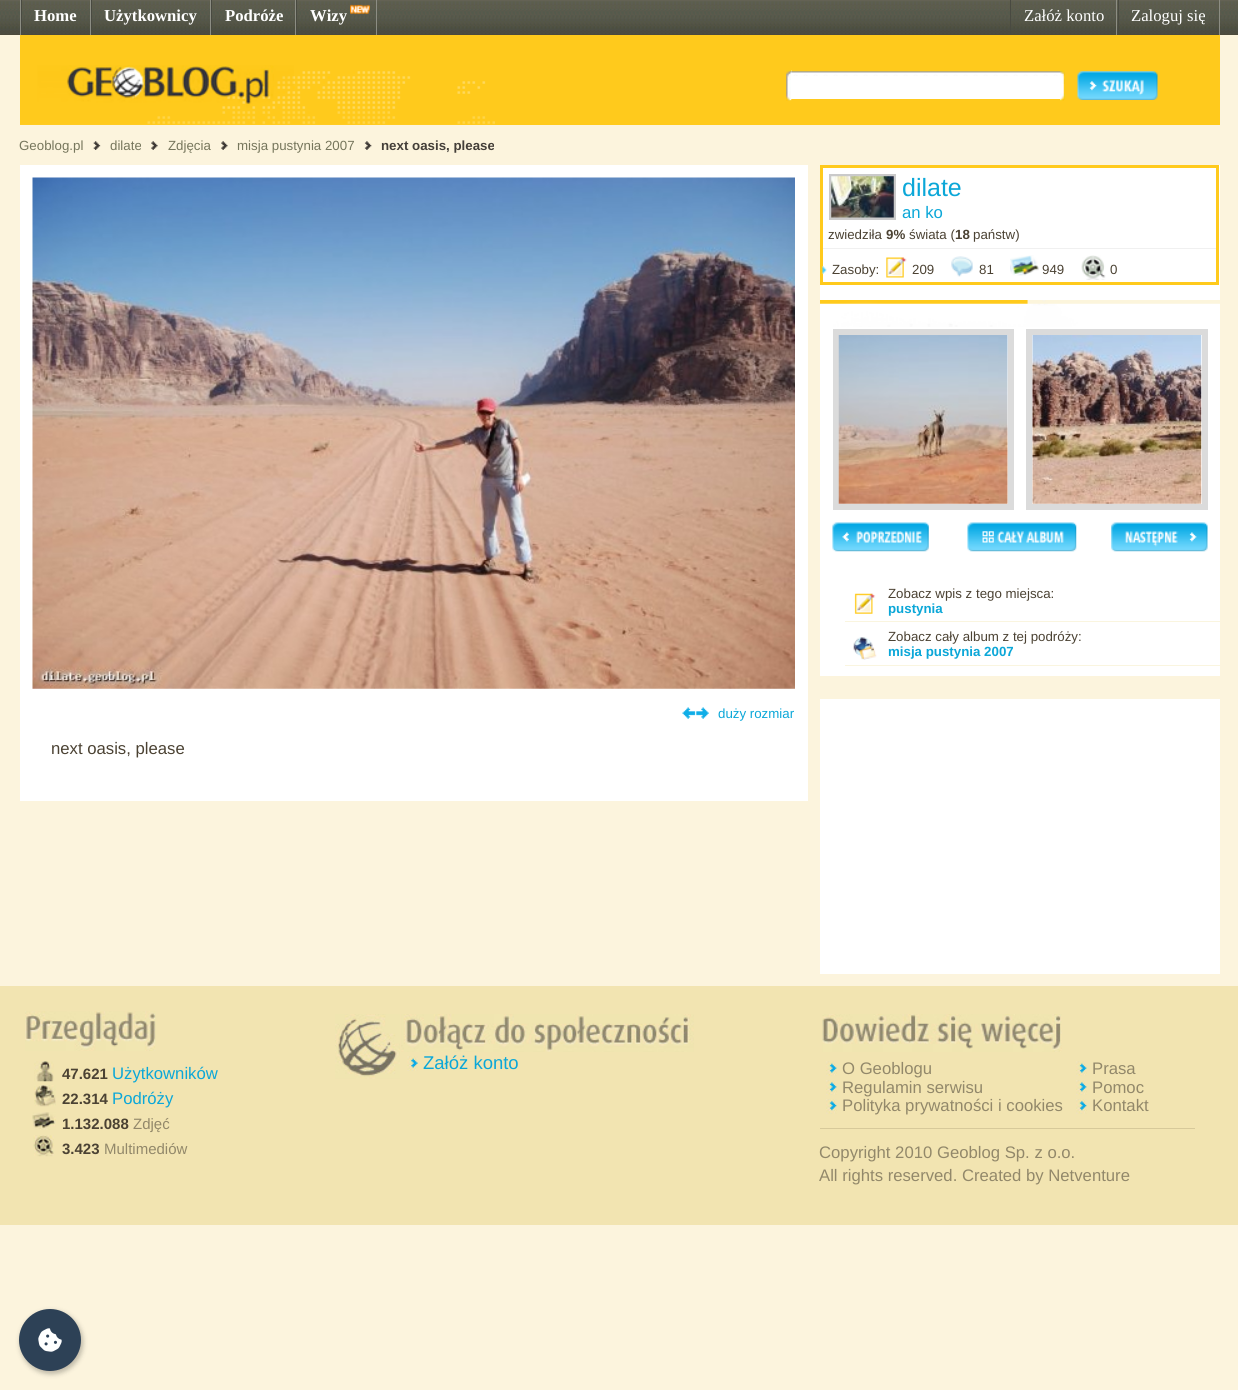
#include <cairo.h>
#include <math.h>
#include <stddef.h>

typedef struct { double x, y; const char *s; } line_t;
typedef struct { double x, y, w, h; unsigned color; } box_t;

static void ink(cairo_t *ctx, unsigned color) {
    cairo_set_source_rgb(ctx, (color >> 16) / 255.0, (color >> 8 & 255) / 255.0, (color & 255) / 255.0);
}

static void round_path(cairo_t *ctx, double x, double y, double w, double h, double r) {
    cairo_new_sub_path(ctx);
    cairo_arc(ctx, x + w - r, y + h - r, r, 0, M_PI / 2);
    cairo_arc(ctx, x + r, y + h - r, r, M_PI / 2, M_PI);
    cairo_arc(ctx, x + r, y + r, r, M_PI, 1.5 * M_PI);
    cairo_arc(ctx, x + w - r, y + r, r, 1.5 * M_PI, 2 * M_PI);
    cairo_close_path(ctx);
}

static void blur_box(cairo_t *ctx, double x, double y, double w, double h, double r, double blur, double alpha) {
    cairo_push_group_with_content(ctx, CAIRO_CONTENT_ALPHA);
    cairo_set_operator(ctx, CAIRO_OPERATOR_SOURCE);
    for (int i = 15; i >= -15 && fmin(w, h) + blur * i / 3 > 0; i -= 2) {
        double e = blur * i / 6;
        cairo_set_source_rgba(ctx, 0, 0, 0, alpha * erfc((i - 1) / 8.5) / 2);
        round_path(ctx, x - e, y - e, w + 2 * e, h + 2 * e, fmax(0, fmin(r + e + blur * .6, fmin(w, h) / 2 + e)));
        cairo_fill(ctx);
    }
    cairo_pattern_t *soft = cairo_pop_group(ctx);
    cairo_mask(ctx, soft);
    cairo_pattern_destroy(soft);
}

static void paste(cairo_t *ctx, const char *path, double x, double y, double w, double h) {
    cairo_surface_t *image = cairo_image_surface_create_from_png(path);
    cairo_save(ctx);
    cairo_set_source_surface(ctx, image, x, y);
    cairo_rectangle(ctx, x, y, w, h);
    cairo_fill(ctx);
    cairo_restore(ctx);
    cairo_surface_destroy(image);
}

int main(void) {
    cairo_surface_t *surface = cairo_image_surface_create(CAIRO_FORMAT_RGB24, 1238, 1390);
    cairo_t *ctx = cairo_create(surface);
    cairo_font_options_t *options = cairo_font_options_create();
    cairo_font_options_set_hint_metrics(options, CAIRO_HINT_METRICS_OFF);
    cairo_font_options_set_hint_style(options, CAIRO_HINT_STYLE_NONE);
    cairo_set_font_options(ctx, options);
    cairo_set_miter_limit(ctx, 4);
    ink(ctx, 0xFCF4DD);
    cairo_paint(ctx);
    paste(ctx, "media/1.png", 0, 0, 1238, 35);
    {
        static const box_t items[] = {
            {20, 0, 1, 35, 0x8C8D83},
            {90, 0, 1, 35, 0x8C8D83},
            {21, 0, 1, 35, 0x494A41},
        };
        for (size_t i = 0; i < sizeof items / sizeof *items; i++) {
            ink(ctx, items[i].color);
            cairo_rectangle(ctx, items[i].x, items[i].y, items[i].w, items[i].h);
            cairo_fill(ctx);
        }
    }
    cairo_select_font_face(ctx, "Liberation Serif", CAIRO_FONT_SLANT_NORMAL, CAIRO_FONT_WEIGHT_BOLD);
    cairo_set_font_size(ctx, 16.7);
    ink(ctx, 0xFFFFFF);
    cairo_move_to(ctx, 34, 21);
    cairo_show_text(ctx, "Home");
    ink(ctx, 0x8C8D83);
    cairo_rectangle(ctx, 210, 0, 1, 35);
    cairo_fill(ctx);
    ink(ctx, 0x494A41);
    cairo_rectangle(ctx, 91, 0, 1, 35);
    cairo_fill(ctx);
    ink(ctx, 0xFFFFFF);
    cairo_move_to(ctx, 104, 21);
    cairo_show_text(ctx, "Użytkownicy");
    ink(ctx, 0x8C8D83);
    cairo_rectangle(ctx, 295, 0, 1, 35);
    cairo_fill(ctx);
    ink(ctx, 0x494A41);
    cairo_rectangle(ctx, 211, 0, 1, 35);
    cairo_fill(ctx);
    ink(ctx, 0xFFFFFF);
    cairo_move_to(ctx, 225, 21);
    cairo_show_text(ctx, "Podróże");
    ink(ctx, 0x8C8D83);
    cairo_rectangle(ctx, 376, 0, 1, 35);
    cairo_fill(ctx);
    ink(ctx, 0x494A41);
    cairo_rectangle(ctx, 296, 0, 1, 35);
    cairo_fill(ctx);
    ink(ctx, 0xFFFFFF);
    cairo_move_to(ctx, 310, 21);
    cairo_show_text(ctx, "Wizy");
    paste(ctx, "media/2.png", 350, 4, 20, 10);
    ink(ctx, 0x8C8D83);
    cairo_rectangle(ctx, 1116, 0, 1, 35);
    cairo_fill(ctx);
    ink(ctx, 0x494A41);
    cairo_rectangle(ctx, 1010, 0, 1, 35);
    cairo_fill(ctx);
    cairo_select_font_face(ctx, "Liberation Serif", CAIRO_FONT_SLANT_NORMAL, CAIRO_FONT_WEIGHT_NORMAL);
    ink(ctx, 0xFFFFFF);
    cairo_move_to(ctx, 1024, 21);
    cairo_show_text(ctx, "Załóż konto");
    ink(ctx, 0x8C8D83);
    cairo_rectangle(ctx, 1219, 0, 1, 35);
    cairo_fill(ctx);
    ink(ctx, 0x494A41);
    cairo_rectangle(ctx, 1118, 0, 1, 35);
    cairo_fill(ctx);
    ink(ctx, 0xFFFFFF);
    cairo_move_to(ctx, 1131, 21);
    cairo_show_text(ctx, "Zaloguj się");
    ink(ctx, 0xFFCA1C);
    cairo_rectangle(ctx, 20, 35, 1200, 90);
    cairo_fill(ctx);
    paste(ctx, "media/3.png", 20, 65, 475, 60);
    paste(ctx, "media/4.png", 786, 70, 6, 31);
    ink(ctx, 0xFFFFFF);
    cairo_rectangle(ctx, 791, 70, 269, 29);
    cairo_fill(ctx);
    paste(ctx, "media/5.png", 791, 70, 269, 6);
    paste(ctx, "media/6.png", 1060, 70, 5, 31);
    paste(ctx, "media/7.png", 1077, 71, 81, 29);
    cairo_select_font_face(ctx, "Liberation Sans", CAIRO_FONT_SLANT_NORMAL, CAIRO_FONT_WEIGHT_NORMAL);
    cairo_set_font_size(ctx, 13.3);
    ink(ctx, 0x76765C);
    cairo_move_to(ctx, 19, 150);
    cairo_show_text(ctx, "Geoblog.pl");
    paste(ctx, "media/8.png", 93, 141, 8, 9);
    cairo_move_to(ctx, 110, 150);
    cairo_show_text(ctx, "dilate");
    paste(ctx, "media/9.png", 151, 141, 7, 9);
    cairo_move_to(ctx, 168, 150);
    cairo_show_text(ctx, "Zdjęcia");
    paste(ctx, "media/10.png", 221, 141, 7, 9);
    cairo_move_to(ctx, 237, 150);
    cairo_show_text(ctx, "misja pustynia 2007");
    paste(ctx, "media/11.png", 364, 141, 8, 9);
    cairo_select_font_face(ctx, "Liberation Sans", CAIRO_FONT_SLANT_NORMAL, CAIRO_FONT_WEIGHT_BOLD);
    ink(ctx, 0x443F39);
    cairo_move_to(ctx, 381, 150);
    cairo_show_text(ctx, "next oasis, please");
    ink(ctx, 0xFFFFFF);
    cairo_rectangle(ctx, 820, 165, 400, 511);
    cairo_fill(ctx);
    cairo_rectangle(ctx, 821.5, 166.5, 396, 117);
    ink(ctx, 0xFFCA1C);
    cairo_set_line_width(ctx, 3);
    cairo_stroke(ctx);
    ink(ctx, 0xF0F0F0);
    cairo_rectangle(ctx, 823, 248, 393, 1);
    cairo_fill(ctx);
    cairo_rectangle(ctx, 830.5, 175.5, 64, 43);
    ink(ctx, 0xCACACA);
    cairo_stroke(ctx);
    paste(ctx, "media/12.png", 831, 176, 63, 42);
    cairo_select_font_face(ctx, "Liberation Sans", CAIRO_FONT_SLANT_NORMAL, CAIRO_FONT_WEIGHT_NORMAL);
    cairo_set_font_size(ctx, 25);
    ink(ctx, 0x0BA7D8);
    cairo_move_to(ctx, 902, 196);
    cairo_show_text(ctx, "dilate");
    cairo_set_font_size(ctx, 16.7);
    cairo_move_to(ctx, 902, 218);
    cairo_show_text(ctx, "an ko");
    cairo_set_font_size(ctx, 13.3);
    ink(ctx, 0x4B4233);
    cairo_move_to(ctx, 828, 239);
    cairo_show_text(ctx, "zwiedziła");
    cairo_select_font_face(ctx, "Liberation Sans", CAIRO_FONT_SLANT_NORMAL, CAIRO_FONT_WEIGHT_BOLD);
    cairo_move_to(ctx, 886, 239);
    cairo_show_text(ctx, "9%");
    cairo_select_font_face(ctx, "Liberation Sans", CAIRO_FONT_SLANT_NORMAL, CAIRO_FONT_WEIGHT_NORMAL);
    cairo_move_to(ctx, 909, 239);
    cairo_show_text(ctx, "świata (");
    cairo_select_font_face(ctx, "Liberation Sans", CAIRO_FONT_SLANT_NORMAL, CAIRO_FONT_WEIGHT_BOLD);
    cairo_move_to(ctx, 955, 239);
    cairo_show_text(ctx, "18");
    cairo_select_font_face(ctx, "Liberation Sans", CAIRO_FONT_SLANT_NORMAL, CAIRO_FONT_WEIGHT_NORMAL);
    cairo_move_to(ctx, 973, 239);
    cairo_show_text(ctx, "państw)");
    paste(ctx, "media/13.png", 822, 266, 5, 8);
    cairo_move_to(ctx, 832, 274);
    cairo_show_text(ctx, "Zasoby:");
    paste(ctx, "media/14.png", 886, 257, 21, 21);
    cairo_move_to(ctx, 912, 274);
    cairo_show_text(ctx, "209");
    paste(ctx, "media/15.png", 951, 256, 22, 21);
    cairo_move_to(ctx, 979, 274);
    cairo_show_text(ctx, "81");
    paste(ctx, "media/16.png", 1010, 255, 29, 21);
    cairo_move_to(ctx, 1042, 274);
    cairo_show_text(ctx, "949");
    paste(ctx, "media/17.png", 1081, 255, 25, 25);
    cairo_move_to(ctx, 1110, 274);
    cairo_show_text(ctx, "0");
    paste(ctx, "media/18.png", 820, 300, 400, 27);
    cairo_rectangle(ctx, 836, 332, 175, 175);
    ink(ctx, 0xDBDBDB);
    cairo_set_line_width(ctx, 6);
    cairo_stroke(ctx);
    paste(ctx, "media/19.png", 838, 335, 170, 169);
    cairo_rectangle(ctx, 1029, 332, 176, 175);
    cairo_stroke(ctx);
    paste(ctx, "media/20.png", 1032, 335, 170, 169);
    paste(ctx, "media/21.png", 832, 522, 97, 30);
    paste(ctx, "media/22.png", 967, 522, 110, 30);
    paste(ctx, "media/23.png", 1111, 522, 97, 30);
    ink(ctx, 0xFAF5DF);
    cairo_rectangle(ctx, 845, 621, 375, 1);
    cairo_fill(ctx);
    paste(ctx, "media/24.png", 854, 593, 22, 21);
    ink(ctx, 0x4B4233);
    cairo_move_to(ctx, 888, 598);
    cairo_show_text(ctx, "Zobacz wpis z tego miejsca:");
    cairo_select_font_face(ctx, "Liberation Sans", CAIRO_FONT_SLANT_NORMAL, CAIRO_FONT_WEIGHT_BOLD);
    ink(ctx, 0x0BA7D8);
    cairo_move_to(ctx, 888, 613);
    cairo_show_text(ctx, "pustynia");
    ink(ctx, 0xFAF5DF);
    cairo_rectangle(ctx, 845, 665, 375, 1);
    cairo_fill(ctx);
    paste(ctx, "media/25.png", 853, 637, 24, 23);
    cairo_select_font_face(ctx, "Liberation Sans", CAIRO_FONT_SLANT_NORMAL, CAIRO_FONT_WEIGHT_NORMAL);
    ink(ctx, 0x4B4233);
    cairo_move_to(ctx, 888, 641);
    cairo_show_text(ctx, "Zobacz cały album z tej podróży:");
    cairo_select_font_face(ctx, "Liberation Sans", CAIRO_FONT_SLANT_NORMAL, CAIRO_FONT_WEIGHT_BOLD);
    ink(ctx, 0x0BA7D8);
    cairo_move_to(ctx, 888, 656);
    cairo_show_text(ctx, "misja pustynia 2007");
    ink(ctx, 0xFFFFFF);
    cairo_rectangle(ctx, 820, 699, 400, 275);
    cairo_fill(ctx);
    cairo_rectangle(ctx, 20, 165, 788, 636);
    cairo_fill(ctx);
    paste(ctx, "media/26.png", 32, 177, 763, 512);
    paste(ctx, "media/27.png", 682, 707, 27, 12);
    cairo_select_font_face(ctx, "Liberation Sans", CAIRO_FONT_SLANT_NORMAL, CAIRO_FONT_WEIGHT_NORMAL);
    ink(ctx, 0x0BA7D8);
    cairo_move_to(ctx, 718, 718);
    cairo_show_text(ctx, "duży rozmiar");
    cairo_set_font_size(ctx, 16.7);
    ink(ctx, 0x4B4233);
    cairo_move_to(ctx, 51, 754);
    cairo_show_text(ctx, "next oasis, please");
    ink(ctx, 0xF2E4B1);
    cairo_rectangle(ctx, 0, 986, 1238, 239);
    cairo_fill(ctx);
    paste(ctx, "media/28.png", 335, 1014, 65, 65);
    paste(ctx, "media/29.png", 401, 1014, 293, 38);
    paste(ctx, "media/30.png", 407, 1056, 11, 15);
    cairo_set_font_size(ctx, 18.5);
    ink(ctx, 0x0BA7D8);
    cairo_move_to(ctx, 423, 1069);
    cairo_show_text(ctx, "Załóż konto");
    paste(ctx, "media/31.png", 25, 1011, 131, 40);
    paste(ctx, "media/32.png", 34, 1061, 20, 21);
    cairo_select_font_face(ctx, "Liberation Sans", CAIRO_FONT_SLANT_NORMAL, CAIRO_FONT_WEIGHT_BOLD);
    cairo_set_font_size(ctx, 15);
    ink(ctx, 0x4B4233);
    cairo_move_to(ctx, 62, 1079);
    cairo_show_text(ctx, "47.621");
    cairo_select_font_face(ctx, "Liberation Sans", CAIRO_FONT_SLANT_NORMAL, CAIRO_FONT_WEIGHT_NORMAL);
    cairo_set_font_size(ctx, 16.7);
    ink(ctx, 0x0BA7D8);
    cairo_move_to(ctx, 112, 1079);
    cairo_show_text(ctx, "Użytkowników");
    paste(ctx, "media/33.png", 34, 1085, 22, 22);
    cairo_select_font_face(ctx, "Liberation Sans", CAIRO_FONT_SLANT_NORMAL, CAIRO_FONT_WEIGHT_BOLD);
    cairo_set_font_size(ctx, 15);
    ink(ctx, 0x4B4233);
    cairo_move_to(ctx, 62, 1104);
    cairo_show_text(ctx, "22.314");
    cairo_select_font_face(ctx, "Liberation Sans", CAIRO_FONT_SLANT_NORMAL, CAIRO_FONT_WEIGHT_NORMAL);
    cairo_set_font_size(ctx, 16.7);
    ink(ctx, 0x0BA7D8);
    cairo_move_to(ctx, 112, 1104);
    cairo_show_text(ctx, "Podróży");
    paste(ctx, "media/34.png", 32, 1112, 24, 18);
    cairo_select_font_face(ctx, "Liberation Sans", CAIRO_FONT_SLANT_NORMAL, CAIRO_FONT_WEIGHT_BOLD);
    cairo_set_font_size(ctx, 15);
    ink(ctx, 0x4B4233);
    cairo_move_to(ctx, 62, 1129);
    cairo_show_text(ctx, "1.132.088");
    cairo_select_font_face(ctx, "Liberation Sans", CAIRO_FONT_SLANT_NORMAL, CAIRO_FONT_WEIGHT_NORMAL);
    ink(ctx, 0x92886A);
    cairo_move_to(ctx, 133, 1129);
    cairo_show_text(ctx, "Zdjęć");
    paste(ctx, "media/35.png", 33, 1135, 21, 22);
    cairo_select_font_face(ctx, "Liberation Sans", CAIRO_FONT_SLANT_NORMAL, CAIRO_FONT_WEIGHT_BOLD);
    ink(ctx, 0x4B4233);
    cairo_move_to(ctx, 62, 1154);
    cairo_show_text(ctx, "3.423");
    cairo_select_font_face(ctx, "Liberation Sans", CAIRO_FONT_SLANT_NORMAL, CAIRO_FONT_WEIGHT_NORMAL);
    ink(ctx, 0x92886A);
    cairo_move_to(ctx, 104, 1154);
    cairo_show_text(ctx, "Multimediów");
    paste(ctx, "media/36.png", 822, 1014, 240, 38);
    ink(ctx, 0xD7C99A);
    cairo_rectangle(ctx, 820, 1128, 375, 1);
    cairo_fill(ctx);
    paste(ctx, "media/37.png", 826, 1061, 11, 15);
    cairo_set_font_size(ctx, 16.7);
    ink(ctx, 0x92886A);
    cairo_move_to(ctx, 842, 1074);
    cairo_show_text(ctx, "O Geoblogu");
    paste(ctx, "media/38.png", 826, 1080, 11, 15);
    cairo_move_to(ctx, 842, 1093);
    cairo_show_text(ctx, "Regulamin serwisu");
    paste(ctx, "media/39.png", 826, 1099, 11, 15);
    cairo_move_to(ctx, 842, 1111);
    cairo_show_text(ctx, "Polityka prywatności i cookies");
    paste(ctx, "media/37.png", 1076, 1061, 11, 15);
    cairo_move_to(ctx, 1092, 1074);
    cairo_show_text(ctx, "Prasa");
    paste(ctx, "media/38.png", 1076, 1080, 11, 15);
    cairo_move_to(ctx, 1092, 1093);
    cairo_show_text(ctx, "Pomoc");
    paste(ctx, "media/39.png", 1076, 1099, 11, 15);
    {
        static const line_t items[] = {
            {1092, 1111, "Kontakt"},
            {819, 1158, "Copyright 2010 Geoblog Sp. z o.o."},
            {819, 1181, "All rights reserved. Created by Netventure"},
        };
        for (size_t i = 0; i < sizeof items / sizeof *items; i++) {
            cairo_move_to(ctx, items[i].x, items[i].y);
            cairo_show_text(ctx, items[i].s);
        }
    }
    ink(ctx, 0x000000);
    blur_box(ctx, 20, 1311, 63, 63, 31.5, 2.5, 0.25);
    ink(ctx, 0x2D4156);
    cairo_arc(ctx, 50, 1340, 31, 0, 2 * M_PI);
    cairo_fill(ctx);
    paste(ctx, "media/40.png", 38, 1328, 24, 24);
    cairo_surface_write_to_png(surface, "image.png");
    cairo_font_options_destroy(options);
    cairo_destroy(ctx);
    cairo_surface_destroy(surface);
    return 0;
}
